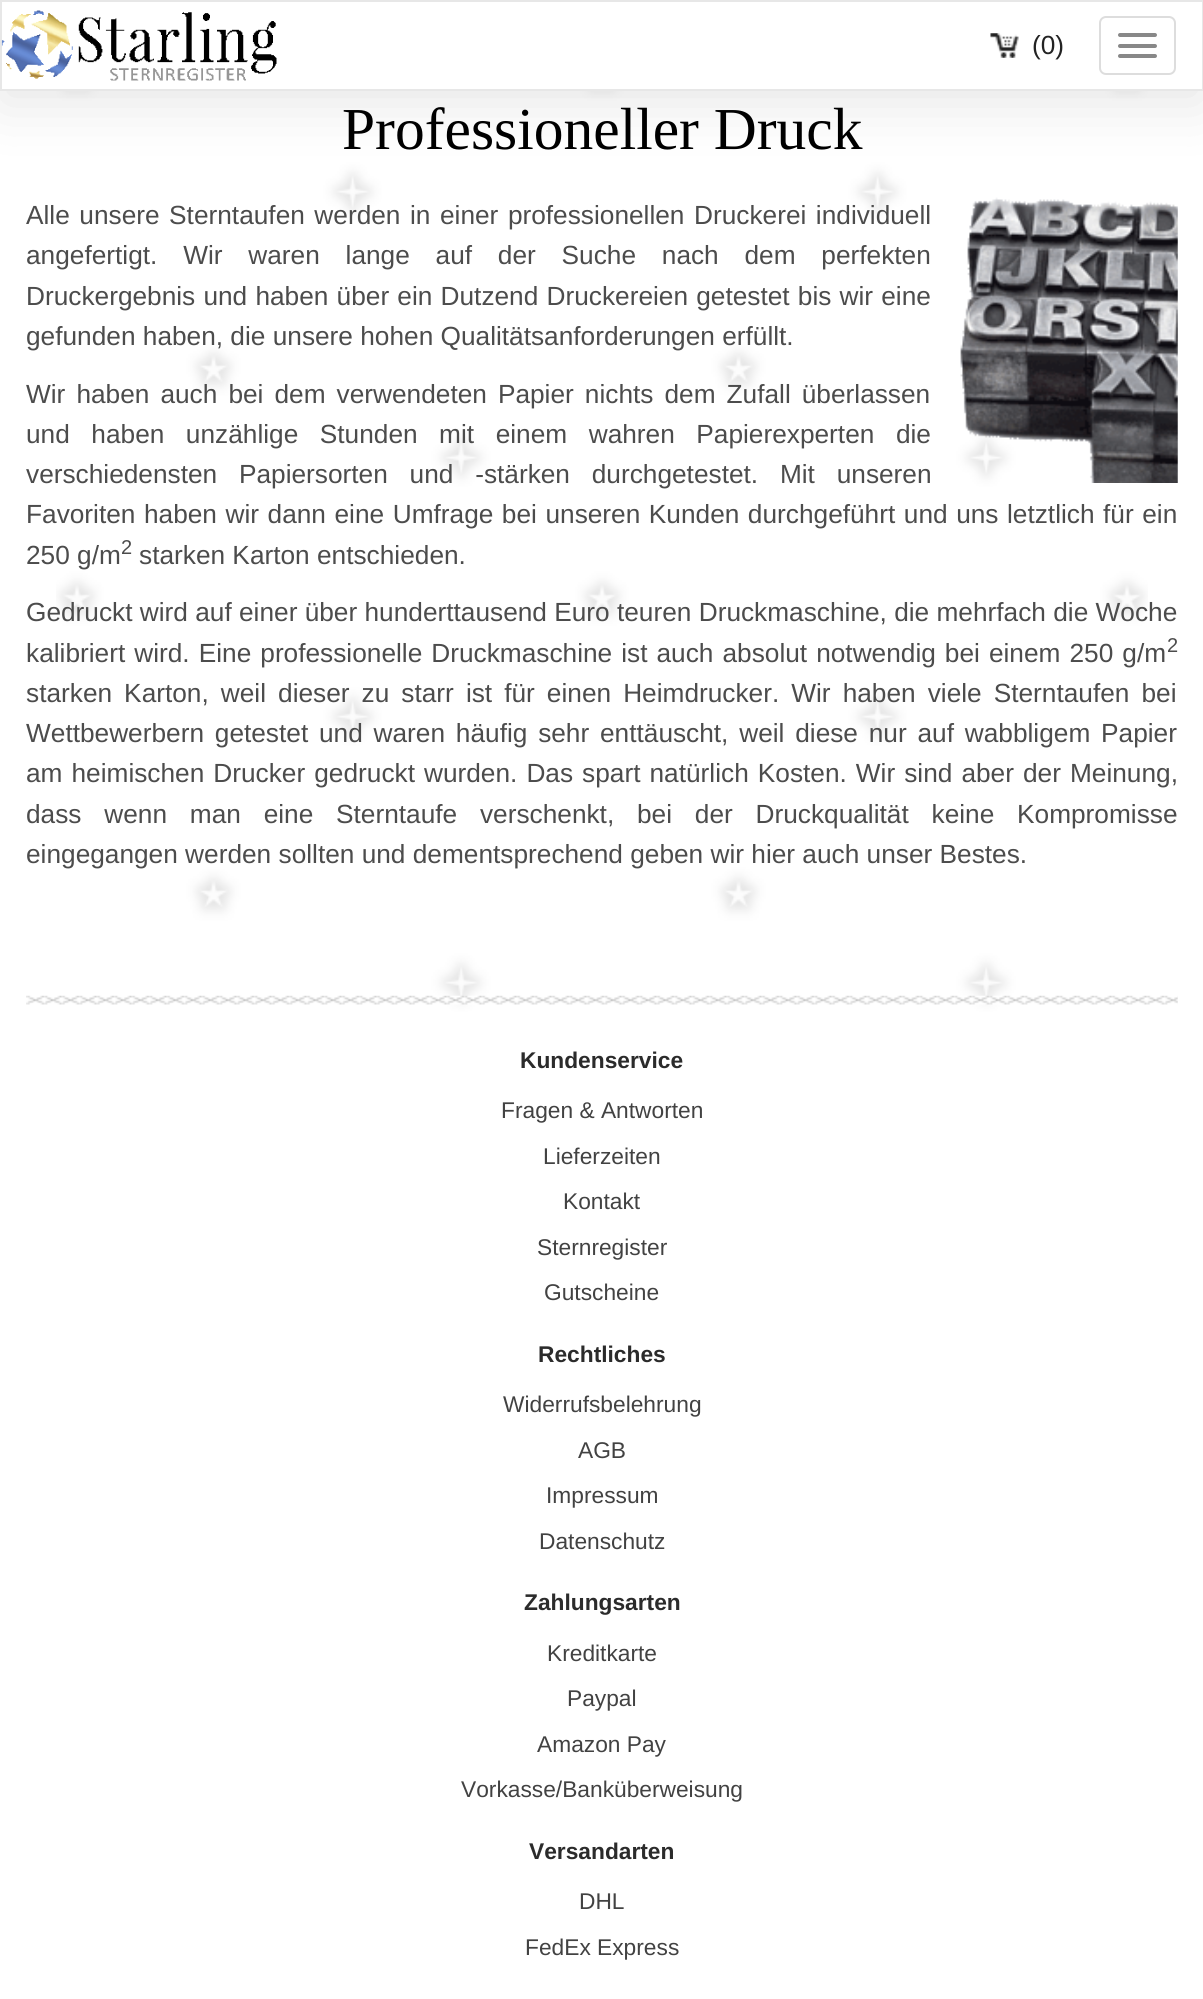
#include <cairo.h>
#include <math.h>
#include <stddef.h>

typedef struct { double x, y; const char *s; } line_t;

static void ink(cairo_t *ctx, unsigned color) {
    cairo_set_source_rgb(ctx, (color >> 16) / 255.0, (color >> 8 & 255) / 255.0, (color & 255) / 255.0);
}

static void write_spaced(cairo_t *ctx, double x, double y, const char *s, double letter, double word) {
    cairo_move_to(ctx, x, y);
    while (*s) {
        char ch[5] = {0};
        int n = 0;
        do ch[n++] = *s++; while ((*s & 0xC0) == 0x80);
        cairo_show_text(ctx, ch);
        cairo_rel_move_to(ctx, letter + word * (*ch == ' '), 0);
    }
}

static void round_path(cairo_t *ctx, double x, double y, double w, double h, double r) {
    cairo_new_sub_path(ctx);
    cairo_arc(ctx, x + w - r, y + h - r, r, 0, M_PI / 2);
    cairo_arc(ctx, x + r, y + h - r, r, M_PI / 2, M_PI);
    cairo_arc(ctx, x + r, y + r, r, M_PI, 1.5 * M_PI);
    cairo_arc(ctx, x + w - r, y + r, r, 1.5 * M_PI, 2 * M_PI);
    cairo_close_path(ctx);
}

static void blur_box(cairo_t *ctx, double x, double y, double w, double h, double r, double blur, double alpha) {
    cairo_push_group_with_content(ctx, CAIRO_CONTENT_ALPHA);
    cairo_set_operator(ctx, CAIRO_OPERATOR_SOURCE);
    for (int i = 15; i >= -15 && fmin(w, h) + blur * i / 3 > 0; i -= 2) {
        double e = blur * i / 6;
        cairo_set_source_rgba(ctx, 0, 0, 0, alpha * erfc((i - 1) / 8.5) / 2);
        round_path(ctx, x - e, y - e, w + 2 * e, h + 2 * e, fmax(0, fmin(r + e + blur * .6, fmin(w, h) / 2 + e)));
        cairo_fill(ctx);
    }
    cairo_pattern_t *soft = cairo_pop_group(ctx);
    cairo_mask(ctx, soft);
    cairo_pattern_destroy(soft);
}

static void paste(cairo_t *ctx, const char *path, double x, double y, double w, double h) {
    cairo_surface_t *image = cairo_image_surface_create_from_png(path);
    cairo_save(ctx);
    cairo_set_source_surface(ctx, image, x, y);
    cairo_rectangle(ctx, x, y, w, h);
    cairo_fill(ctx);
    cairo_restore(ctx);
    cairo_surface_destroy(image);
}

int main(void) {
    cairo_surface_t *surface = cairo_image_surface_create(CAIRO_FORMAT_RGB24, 1203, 1999);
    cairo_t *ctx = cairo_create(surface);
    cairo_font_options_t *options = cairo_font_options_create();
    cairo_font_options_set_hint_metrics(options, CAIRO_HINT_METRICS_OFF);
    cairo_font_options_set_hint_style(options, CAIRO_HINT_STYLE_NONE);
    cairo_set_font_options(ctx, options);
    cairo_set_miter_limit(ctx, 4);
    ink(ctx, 0xFFFFFF);
    cairo_paint(ctx);
    paste(ctx, "media/1.png", 56, 91, 1092, 949);
    ink(ctx, 0x000000);
    blur_box(ctx, 0, 12, 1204, 91, 0, 29, 0.1);
    ink(ctx, 0xFFFFFF);
    cairo_rectangle(ctx, 1, 1, 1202, 89);
    cairo_fill_preserve(ctx);
    ink(ctx, 0xE7E7E7);
    cairo_stroke(ctx);
    paste(ctx, "media/2.png", 1, 10, 276, 71);
    paste(ctx, "media/3.png", 990, 33, 29, 25);
    cairo_select_font_face(ctx, "Liberation Sans", CAIRO_FONT_SLANT_NORMAL, CAIRO_FONT_WEIGHT_NORMAL);
    cairo_set_font_size(ctx, 26.25);
    ink(ctx, 0x232323);
    cairo_move_to(ctx, 1032, 54);
    cairo_show_text(ctx, "(0)");
    round_path(ctx, 1100, 17, 75, 57, 6);
    ink(ctx, 0xDDDDDD);
    cairo_stroke(ctx);
    ink(ctx, 0x888888);
    round_path(ctx, 1118, 33, 39, 4, 2);
    cairo_fill(ctx);
    round_path(ctx, 1118, 44, 39, 4, 2);
    cairo_fill(ctx);
    round_path(ctx, 1118, 54, 39, 4, 2);
    cairo_fill(ctx);
    cairo_select_font_face(ctx, "Liberation Serif", CAIRO_FONT_SLANT_NORMAL, CAIRO_FONT_WEIGHT_NORMAL);
    cairo_set_font_size(ctx, 59.5);
    ink(ctx, 0x000000);
    cairo_move_to(ctx, 342, 149);
    cairo_show_text(ctx, "Professioneller Druck");
    cairo_select_font_face(ctx, "Liberation Sans", CAIRO_FONT_SLANT_NORMAL, CAIRO_FONT_WEIGHT_NORMAL);
    cairo_set_font_size(ctx, 26.25);
    ink(ctx, 0x4C4C4C);
    write_spaced(ctx, 26, 224, "Alle unsere Sterntaufen werden in einer professionellen Druckerei individuell", 0, 2.25);
    write_spaced(ctx, 26, 264, "angefertigt. Wir waren lange auf der Suche nach dem perfekten", 0, 18.5);
    write_spaced(ctx, 26, 305, "Druckergebnis und haben über ein Dutzend Druckereien getestet bis wir eine", 0, 0.9);
    cairo_move_to(ctx, 26, 345);
    cairo_show_text(ctx, "gefunden haben, die unsere hohen Qualitätsanforderungen erfüllt.");
    paste(ctx, "media/4.png", 960, 197, 218, 286);
    write_spaced(ctx, 26, 403, "Wir haben auch bei dem verwendeten Papier nichts dem Zufall überlassen", 0, 3.75);
    write_spaced(ctx, 26, 443, "und haben unzählige Stunden mit einem wahren Papierexperten die", 0, 14.25);
    write_spaced(ctx, 26, 483, "verschiedensten Papiersorten und -stärken durchgetestet. Mit unseren", 0, 14.5);
    write_spaced(ctx, 26, 523, "Favoriten haben wir dann eine Umfrage bei unseren Kunden durchgeführt und uns letztlich für ein", 0, 1.25);
    cairo_move_to(ctx, 26, 564);
    cairo_show_text(ctx, "250 g/m");
    cairo_set_font_size(ctx, 20);
    cairo_move_to(ctx, 121, 554);
    cairo_show_text(ctx, "2");
    cairo_set_font_size(ctx, 26.25);
    cairo_move_to(ctx, 139, 564);
    cairo_show_text(ctx, "starken Karton entschieden.");
    cairo_move_to(ctx, 26, 621);
    cairo_show_text(ctx, "Gedruckt wird auf einer über hunderttausend Euro teuren Druckmaschine, die mehrfach die Woche");
    write_spaced(ctx, 26, 662, "kalibriert wird. Eine professionelle Druckmaschine ist auch absolut notwendig bei einem 250 g/m", 0, 1.75);
    cairo_set_font_size(ctx, 20);
    cairo_move_to(ctx, 1167, 652);
    cairo_show_text(ctx, "2");
    cairo_set_font_size(ctx, 26.25);
    write_spaced(ctx, 26, 702, "starken Karton, weil dieser zu starr ist für einen Heimdrucker. Wir haben viele Sterntaufen bei", 0, 4.75);
    write_spaced(ctx, 26, 742, "Wettbewerbern getestet und waren häufig sehr enttäuscht, weil diese nur auf wabbligem Papier", 0, 3.5);
    write_spaced(ctx, 26, 782, "am heimischen Drucker gedruckt wurden. Das spart natürlich Kosten. Wir sind aber der Meinung,", 0, 1.75);
    write_spaced(ctx, 26, 823, "dass wenn man eine Sterntaufe verschenkt, bei der Druckqualität keine Kompromisse", 0, 15.5);
    cairo_move_to(ctx, 26, 863);
    cairo_show_text(ctx, "eingegangen werden sollten und dementsprechend geben wir hier auch unser Bestes.");
    paste(ctx, "media/5.png", 26, 995, 1152, 10);
    cairo_select_font_face(ctx, "Liberation Sans", CAIRO_FONT_SLANT_NORMAL, CAIRO_FONT_WEIGHT_BOLD);
    cairo_set_font_size(ctx, 22.75);
    ink(ctx, 0x2B2B2B);
    cairo_move_to(ctx, 520, 1068);
    cairo_show_text(ctx, "Kundenservice");
    cairo_select_font_face(ctx, "Liberation Sans", CAIRO_FONT_SLANT_NORMAL, CAIRO_FONT_WEIGHT_NORMAL);
    ink(ctx, 0x424242);
    {
        static const line_t items[] = {
            {501, 1118, "Fragen & Antworten"},
            {543, 1164, "Lieferzeiten"},
            {563, 1209, "Kontakt"},
            {537, 1255, "Sternregister"},
            {544, 1300, "Gutscheine"},
        };
        for (size_t i = 0; i < sizeof items / sizeof *items; i++) {
            cairo_move_to(ctx, items[i].x, items[i].y);
            cairo_show_text(ctx, items[i].s);
        }
    }
    cairo_select_font_face(ctx, "Liberation Sans", CAIRO_FONT_SLANT_NORMAL, CAIRO_FONT_WEIGHT_BOLD);
    ink(ctx, 0x2B2B2B);
    cairo_move_to(ctx, 538, 1362);
    cairo_show_text(ctx, "Rechtliches");
    cairo_select_font_face(ctx, "Liberation Sans", CAIRO_FONT_SLANT_NORMAL, CAIRO_FONT_WEIGHT_NORMAL);
    ink(ctx, 0x424242);
    {
        static const line_t items[] = {
            {503, 1412, "Widerrufsbelehrung"},
            {578, 1458, "AGB"},
            {546, 1503, "Impressum"},
            {539, 1549, "Datenschutz"},
        };
        for (size_t i = 0; i < sizeof items / sizeof *items; i++) {
            cairo_move_to(ctx, items[i].x, items[i].y);
            cairo_show_text(ctx, items[i].s);
        }
    }
    cairo_select_font_face(ctx, "Liberation Sans", CAIRO_FONT_SLANT_NORMAL, CAIRO_FONT_WEIGHT_BOLD);
    ink(ctx, 0x2B2B2B);
    cairo_move_to(ctx, 524, 1610);
    cairo_show_text(ctx, "Zahlungsarten");
    cairo_select_font_face(ctx, "Liberation Sans", CAIRO_FONT_SLANT_NORMAL, CAIRO_FONT_WEIGHT_NORMAL);
    ink(ctx, 0x424242);
    {
        static const line_t items[] = {
            {547, 1661, "Kreditkarte"},
            {567, 1706, "Paypal"},
            {537, 1752, "Amazon Pay"},
            {461, 1797, "Vorkasse/Banküberweisung"},
        };
        for (size_t i = 0; i < sizeof items / sizeof *items; i++) {
            cairo_move_to(ctx, items[i].x, items[i].y);
            cairo_show_text(ctx, items[i].s);
        }
    }
    cairo_select_font_face(ctx, "Liberation Sans", CAIRO_FONT_SLANT_NORMAL, CAIRO_FONT_WEIGHT_BOLD);
    ink(ctx, 0x2B2B2B);
    cairo_move_to(ctx, 529, 1859);
    cairo_show_text(ctx, "Versandarten");
    cairo_select_font_face(ctx, "Liberation Sans", CAIRO_FONT_SLANT_NORMAL, CAIRO_FONT_WEIGHT_NORMAL);
    ink(ctx, 0x424242);
    cairo_move_to(ctx, 579, 1909);
    cairo_show_text(ctx, "DHL");
    cairo_move_to(ctx, 525, 1955);
    cairo_show_text(ctx, "FedEx Express");
    cairo_surface_write_to_png(surface, "image.png");
    cairo_font_options_destroy(options);
    cairo_destroy(ctx);
    cairo_surface_destroy(surface);
    return 0;
}
